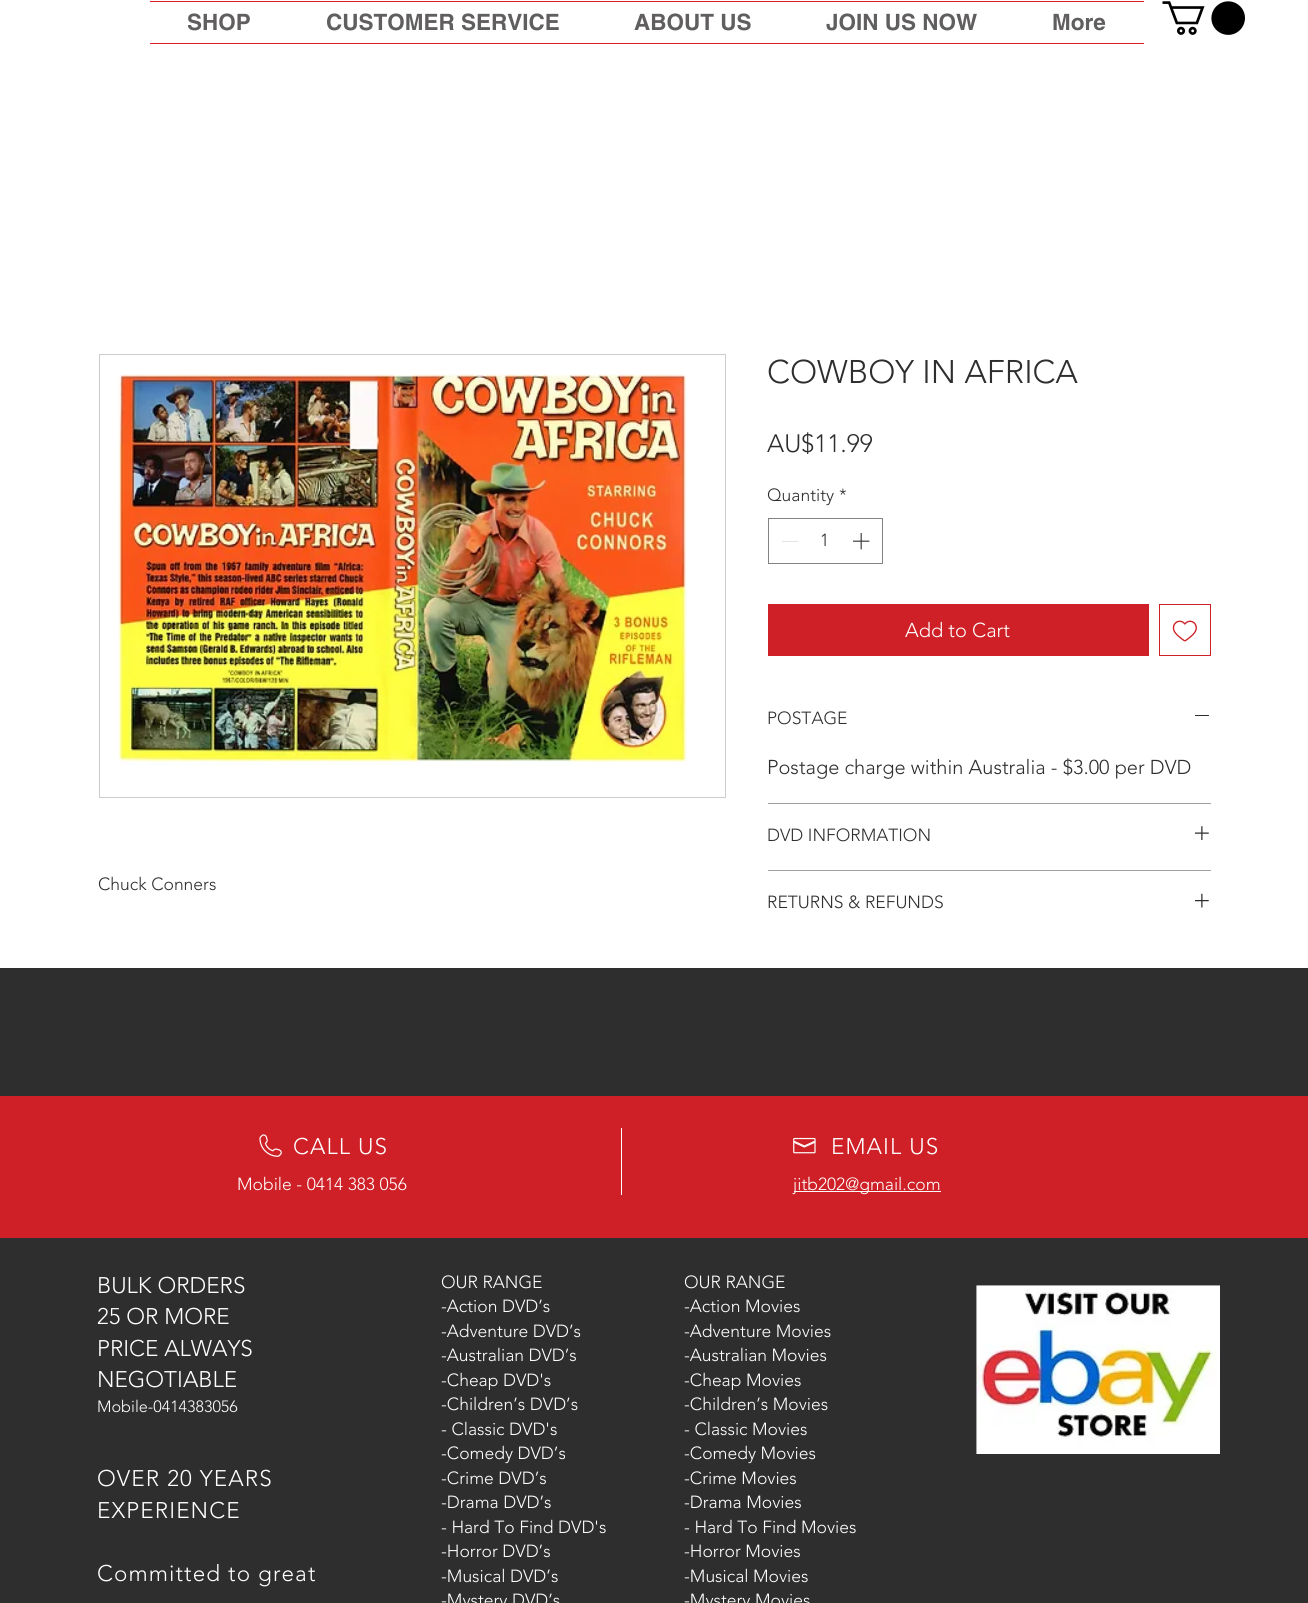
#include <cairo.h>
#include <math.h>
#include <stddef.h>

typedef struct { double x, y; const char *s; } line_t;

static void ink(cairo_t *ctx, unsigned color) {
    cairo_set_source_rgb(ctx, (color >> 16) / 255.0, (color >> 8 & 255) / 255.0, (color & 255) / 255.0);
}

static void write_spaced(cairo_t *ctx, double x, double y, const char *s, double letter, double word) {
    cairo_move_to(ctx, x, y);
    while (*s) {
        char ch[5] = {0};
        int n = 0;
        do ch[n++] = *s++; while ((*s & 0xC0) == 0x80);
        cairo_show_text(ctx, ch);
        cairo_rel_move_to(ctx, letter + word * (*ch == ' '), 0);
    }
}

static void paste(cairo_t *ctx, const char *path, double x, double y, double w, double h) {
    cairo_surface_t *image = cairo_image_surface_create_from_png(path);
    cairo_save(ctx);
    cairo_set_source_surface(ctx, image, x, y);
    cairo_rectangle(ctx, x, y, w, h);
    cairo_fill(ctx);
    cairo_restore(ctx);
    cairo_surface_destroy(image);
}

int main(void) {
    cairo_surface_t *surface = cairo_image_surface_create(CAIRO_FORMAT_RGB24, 1308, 1603);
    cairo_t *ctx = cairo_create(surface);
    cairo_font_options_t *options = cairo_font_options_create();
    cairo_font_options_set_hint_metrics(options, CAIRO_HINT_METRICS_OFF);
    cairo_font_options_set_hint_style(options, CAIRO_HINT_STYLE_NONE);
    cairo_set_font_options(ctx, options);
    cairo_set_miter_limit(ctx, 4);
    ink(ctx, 0xFFFFFF);
    cairo_paint(ctx);
    ink(ctx, 0xE21C21);
    cairo_rectangle(ctx, 150, 1, 994, 1);
    cairo_fill(ctx);
    cairo_rectangle(ctx, 150, 43, 994, 1);
    cairo_fill(ctx);
    cairo_select_font_face(ctx, "helvetica", CAIRO_FONT_SLANT_NORMAL, CAIRO_FONT_WEIGHT_BOLD);
    cairo_set_font_size(ctx, 22.5);
    ink(ctx, 0x605E5E);
    {
        static const line_t items[] = {
            {187, 30, "SHOP"},
            {326, 30, "CUSTOMER SERVICE"},
            {634, 30, "ABOUT US"},
            {826, 30, "JOIN US NOW"},
            {1052, 30, "More"},
        };
        for (size_t i = 0; i < sizeof items / sizeof *items; i++) {
            cairo_move_to(ctx, items[i].x, items[i].y);
            cairo_show_text(ctx, items[i].s);
        }
    }
    paste(ctx, "media/1.png", 1162, 1, 83, 34);
    cairo_rectangle(ctx, 99.5, 354.5, 626, 443);
    ink(ctx, 0xCCCCCC);
    cairo_set_line_width(ctx, 1);
    cairo_stroke(ctx);
    paste(ctx, "media/2.png", 118, 374, 569, 391);
    cairo_select_font_face(ctx, "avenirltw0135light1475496 Light", CAIRO_FONT_SLANT_NORMAL, CAIRO_FONT_WEIGHT_NORMAL);
    cairo_set_font_size(ctx, 17.5);
    ink(ctx, 0x2F2E2E);
    cairo_move_to(ctx, 98, 890);
    cairo_show_text(ctx, "Chuck Conners");
    cairo_set_font_size(ctx, 32.5);
    cairo_move_to(ctx, 767, 383);
    cairo_show_text(ctx, "COWBOY IN AFRICA");
    cairo_set_font_size(ctx, 25);
    cairo_move_to(ctx, 767, 452);
    cairo_show_text(ctx, "AU$11.99");
    cairo_set_font_size(ctx, 17.5);
    cairo_move_to(ctx, 767, 501);
    cairo_show_text(ctx, "Quantity");
    cairo_move_to(ctx, 839, 501);
    cairo_show_text(ctx, "*");
    cairo_rectangle(ctx, 768.5, 518.5, 114, 45);
    ink(ctx, 0x828282);
    cairo_stroke(ctx);
    ink(ctx, 0xE3E3E3);
    cairo_rectangle(ctx, 782, 541, 16, 1);
    cairo_fill(ctx);
    ink(ctx, 0x2F2E2E);
    cairo_move_to(ctx, 820, 546);
    cairo_show_text(ctx, "1");
    paste(ctx, "media/3.png", 853, 533, 17, 17);
    ink(ctx, 0xCE2026);
    cairo_rectangle(ctx, 768, 604, 381, 52);
    cairo_fill(ctx);
    cairo_set_font_size(ctx, 20);
    ink(ctx, 0xFFFFFF);
    cairo_move_to(ctx, 905, 637);
    cairo_show_text(ctx, "Add to Cart");
    cairo_rectangle(ctx, 1159.5, 604.5, 51, 51);
    ink(ctx, 0xCE2026);
    cairo_stroke(ctx);
    paste(ctx, "media/4.png", 1172, 620, 25, 22);
    ink(ctx, 0xA0A09F);
    cairo_rectangle(ctx, 768, 803, 443, 1);
    cairo_fill(ctx);
    cairo_set_font_size(ctx, 17.5);
    ink(ctx, 0x2F2E2E);
    cairo_move_to(ctx, 767, 724);
    cairo_show_text(ctx, "POSTAGE");
    cairo_rectangle(ctx, 1195, 715, 14, 1);
    cairo_fill(ctx);
    cairo_set_font_size(ctx, 20);
    cairo_move_to(ctx, 767, 774);
    cairo_show_text(ctx, "Postage charge within Australia - $3.00 per DVD");
    ink(ctx, 0xA0A09F);
    cairo_rectangle(ctx, 768, 870, 443, 1);
    cairo_fill(ctx);
    cairo_set_font_size(ctx, 17.5);
    ink(ctx, 0x2F2E2E);
    cairo_move_to(ctx, 767, 841);
    cairo_show_text(ctx, "DVD INFORMATION");
    paste(ctx, "media/5.png", 1195, 826, 14, 14);
    cairo_move_to(ctx, 767, 908);
    cairo_show_text(ctx, "RETURNS & REFUNDS");
    paste(ctx, "media/6.png", 1195, 893, 14, 15);
    cairo_rectangle(ctx, 0, 968, 1308, 635);
    cairo_fill(ctx);
    ink(ctx, 0xCE2026);
    cairo_rectangle(ctx, 0, 1096, 1308, 142);
    cairo_fill(ctx);
    paste(ctx, "media/7.png", 259, 1134, 23, 23);
    cairo_set_font_size(ctx, 22.5);
    ink(ctx, 0xFFFFFF);
    write_spaced(ctx, 293, 1154, "CALL US", 1.1, 0);
    cairo_set_font_size(ctx, 17.5);
    cairo_move_to(ctx, 237, 1190);
    cairo_show_text(ctx, "Mobile - 0414 383 056");
    cairo_rectangle(ctx, 621, 1128, 1, 67);
    cairo_fill(ctx);
    paste(ctx, "media/8.png", 793, 1137, 23, 17);
    cairo_set_font_size(ctx, 22.5);
    write_spaced(ctx, 831, 1154, "EMAIL US", 1.1, 0);
    cairo_rectangle(ctx, 794, 1191, 147, 1);
    cairo_fill(ctx);
    cairo_set_font_size(ctx, 17.5);
    cairo_move_to(ctx, 793, 1190);
    cairo_show_text(ctx, "jitb202@gmail.com");
    cairo_set_font_size(ctx, 22.5);
    {
        static const line_t items[] = {
            {97, 1293, "BULK ORDERS"},
            {97, 1324, "25 OR MORE"},
            {97, 1356, "PRICE ALWAYS"},
            {97, 1387, "NEGOTIABLE"},
        };
        for (size_t i = 0; i < sizeof items / sizeof *items; i++) {
            cairo_move_to(ctx, items[i].x, items[i].y);
            cairo_show_text(ctx, items[i].s);
        }
    }
    cairo_set_font_size(ctx, 16.25);
    cairo_move_to(ctx, 97, 1412);
    cairo_show_text(ctx, "Mobile-0414383056");
    cairo_set_font_size(ctx, 17.5);
    {
        static const line_t items[] = {
            {441, 1288, "OUR RANGE"},
            {441, 1312, "-Action DVD’s"},
            {441, 1337, "-Adventure DVD’s"},
            {441, 1361, "-Australian DVD’s"},
            {441, 1386, "-Cheap DVD's"},
            {441, 1410, "-Children’s DVD’s"},
            {441, 1435, "- Classic DVD's"},
            {441, 1459, "-Comedy DVD’s"},
            {441, 1484, "-Crime DVD’s"},
            {441, 1508, "-Drama DVD’s"},
            {441, 1533, "- Hard To Find DVD's"},
            {441, 1557, "-Horror DVD’s"},
            {441, 1582, "-Musical DVD’s"},
            {441, 1606, "-Mystery DVD’s"},
            {684, 1288, "OUR RANGE"},
            {684, 1312, "-Action Movies"},
            {684, 1337, "-Adventure Movies"},
            {684, 1361, "-Australian Movies"},
            {684, 1386, "-Cheap Movies"},
            {684, 1410, "-Children’s Movies"},
            {684, 1435, "- Classic Movies"},
            {684, 1459, "-Comedy Movies"},
            {684, 1484, "-Crime Movies"},
            {684, 1508, "-Drama Movies"},
            {684, 1533, "- Hard To Find Movies"},
            {684, 1557, "-Horror Movies"},
            {684, 1582, "-Musical Movies"},
            {684, 1606, "-Mystery Movies"},
        };
        for (size_t i = 0; i < sizeof items / sizeof *items; i++) {
            cairo_move_to(ctx, items[i].x, items[i].y);
            cairo_show_text(ctx, items[i].s);
        }
    }
    paste(ctx, "media/9.png", 976, 1285, 244, 169);
    cairo_set_font_size(ctx, 22.5);
    {
        static const line_t items[] = {
            {97, 1486, "OVER 20 YEARS"},
            {97, 1518, "EXPERIENCE"},
            {97, 1581, "Committed to great"},
        };
        for (size_t i = 0; i < sizeof items / sizeof *items; i++) {
            write_spaced(ctx, items[i].x, items[i].y, items[i].s, 1.1, 0);
        }
    }
    cairo_surface_write_to_png(surface, "image.png");
    cairo_font_options_destroy(options);
    cairo_destroy(ctx);
    cairo_surface_destroy(surface);
    return 0;
}
